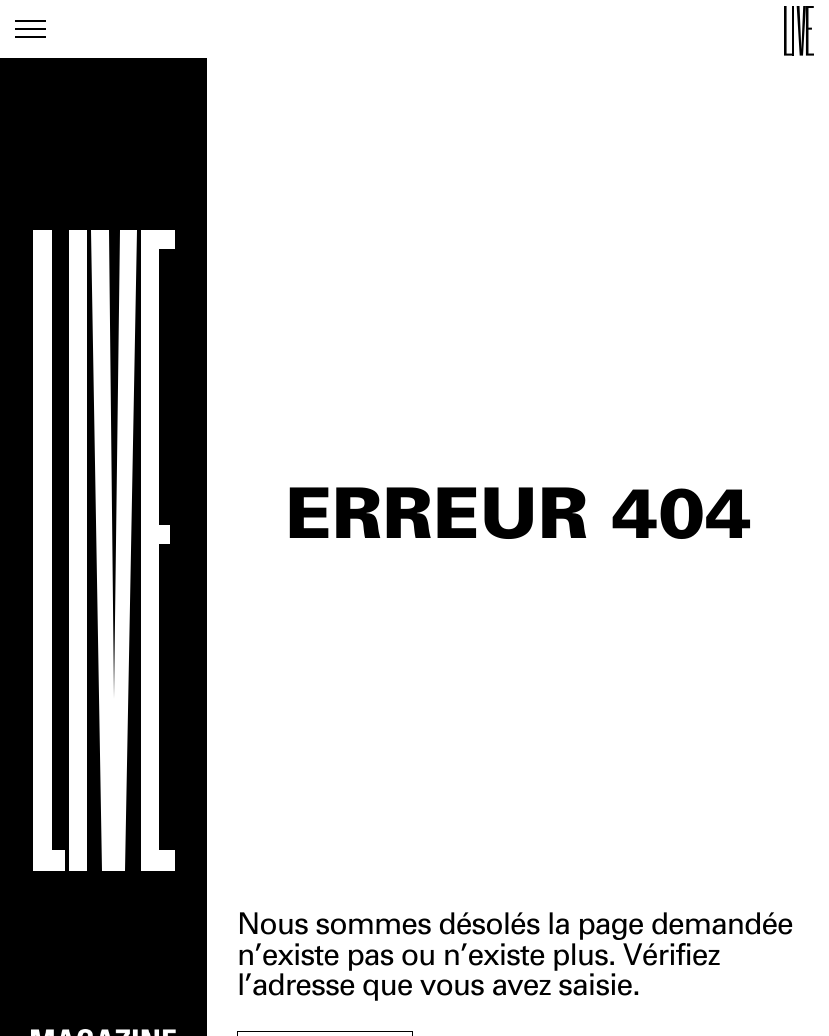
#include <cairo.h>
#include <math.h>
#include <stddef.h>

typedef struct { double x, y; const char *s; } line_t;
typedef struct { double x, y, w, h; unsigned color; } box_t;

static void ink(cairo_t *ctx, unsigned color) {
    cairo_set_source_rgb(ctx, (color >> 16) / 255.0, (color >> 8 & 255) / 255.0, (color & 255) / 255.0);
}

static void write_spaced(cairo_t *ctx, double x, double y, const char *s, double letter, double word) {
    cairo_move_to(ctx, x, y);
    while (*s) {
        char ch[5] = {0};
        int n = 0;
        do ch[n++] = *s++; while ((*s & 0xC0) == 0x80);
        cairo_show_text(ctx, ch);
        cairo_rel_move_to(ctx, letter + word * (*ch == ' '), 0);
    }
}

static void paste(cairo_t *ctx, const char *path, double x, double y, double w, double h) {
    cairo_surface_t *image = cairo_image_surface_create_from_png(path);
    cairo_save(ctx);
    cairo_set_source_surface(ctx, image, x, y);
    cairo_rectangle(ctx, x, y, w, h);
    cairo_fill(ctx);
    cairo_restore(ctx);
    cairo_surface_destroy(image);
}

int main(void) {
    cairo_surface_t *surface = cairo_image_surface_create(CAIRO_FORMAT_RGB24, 829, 1036);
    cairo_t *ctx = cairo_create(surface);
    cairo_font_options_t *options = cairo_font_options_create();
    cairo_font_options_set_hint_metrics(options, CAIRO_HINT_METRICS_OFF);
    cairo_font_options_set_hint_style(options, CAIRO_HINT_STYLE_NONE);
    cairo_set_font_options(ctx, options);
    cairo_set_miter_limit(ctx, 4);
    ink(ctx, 0xFFFFFF);
    cairo_paint(ctx);
    {
        static const box_t items[] = {
            {15, 20, 31, 2, 0x000000},
            {15, 28, 31, 2, 0x000000},
            {15, 36, 31, 2, 0x000000},
        };
        for (size_t i = 0; i < sizeof items / sizeof *items; i++) {
            ink(ctx, items[i].color);
            cairo_rectangle(ctx, items[i].x, items[i].y, items[i].w, items[i].h);
            cairo_fill(ctx);
        }
    }
    paste(ctx, "media/1.png", 784, 6, 30, 50);
    cairo_rectangle(ctx, 0, 58, 207, 978);
    cairo_fill(ctx);
    ink(ctx, 0xFFFFFF);
    cairo_new_path(ctx);
    cairo_move_to(ctx, 65, 871);
    cairo_line_to(ctx, 33, 871);
    cairo_line_to(ctx, 33, 230);
    cairo_line_to(ctx, 52, 230);
    cairo_line_to(ctx, 52, 850);
    cairo_line_to(ctx, 65, 850);
    cairo_close_path(ctx);
    cairo_move_to(ctx, 87, 871);
    cairo_line_to(ctx, 69, 871);
    cairo_line_to(ctx, 69, 230);
    cairo_line_to(ctx, 87, 230);
    cairo_close_path(ctx);
    cairo_move_to(ctx, 125, 871);
    cairo_line_to(ctx, 102, 871);
    cairo_line_to(ctx, 91, 230);
    cairo_line_to(ctx, 109, 230);
    cairo_line_to(ctx, 114, 699);
    cairo_line_to(ctx, 120, 230);
    cairo_line_to(ctx, 137, 230);
    cairo_close_path(ctx);
    cairo_move_to(ctx, 141, 871);
    cairo_line_to(ctx, 141, 230);
    cairo_line_to(ctx, 175, 230);
    cairo_line_to(ctx, 175, 249);
    cairo_line_to(ctx, 159, 249);
    cairo_line_to(ctx, 159, 525);
    cairo_line_to(ctx, 170, 525);
    cairo_line_to(ctx, 170, 544);
    cairo_line_to(ctx, 159, 544);
    cairo_line_to(ctx, 159, 850);
    cairo_line_to(ctx, 175, 850);
    cairo_line_to(ctx, 175, 871);
    cairo_close_path(ctx);
    cairo_fill(ctx);
    paste(ctx, "media/2.png", 31, 1029, 145, 7);
    cairo_select_font_face(ctx, "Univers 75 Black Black", CAIRO_FONT_SLANT_NORMAL, CAIRO_FONT_WEIGHT_NORMAL);
    cairo_set_font_size(ctx, 70);
    ink(ctx, 0x000000);
    cairo_move_to(ctx, 285, 538);
    cairo_show_text(ctx, "ERREUR 404");
    cairo_select_font_face(ctx, "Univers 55 Medium", CAIRO_FONT_SLANT_NORMAL, CAIRO_FONT_WEIGHT_NORMAL);
    cairo_set_font_size(ctx, 30);
    {
        static const line_t items[] = {
            {237, 934, "Nous sommes désolés la page demandée"},
            {237, 965, "n’existe pas ou n’existe plus. Vérifiez"},
            {237, 995, "l’adresse que vous avez saisie."},
        };
        for (size_t i = 0; i < sizeof items / sizeof *items; i++) {
            write_spaced(ctx, items[i].x, items[i].y, items[i].s, -1, 0);
        }
    }
    cairo_rectangle(ctx, 237.5, 1031.5, 175, 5);
    cairo_set_line_width(ctx, 1);
    cairo_stroke(ctx);
    cairo_surface_write_to_png(surface, "image.png");
    cairo_font_options_destroy(options);
    cairo_destroy(ctx);
    cairo_surface_destroy(surface);
    return 0;
}
